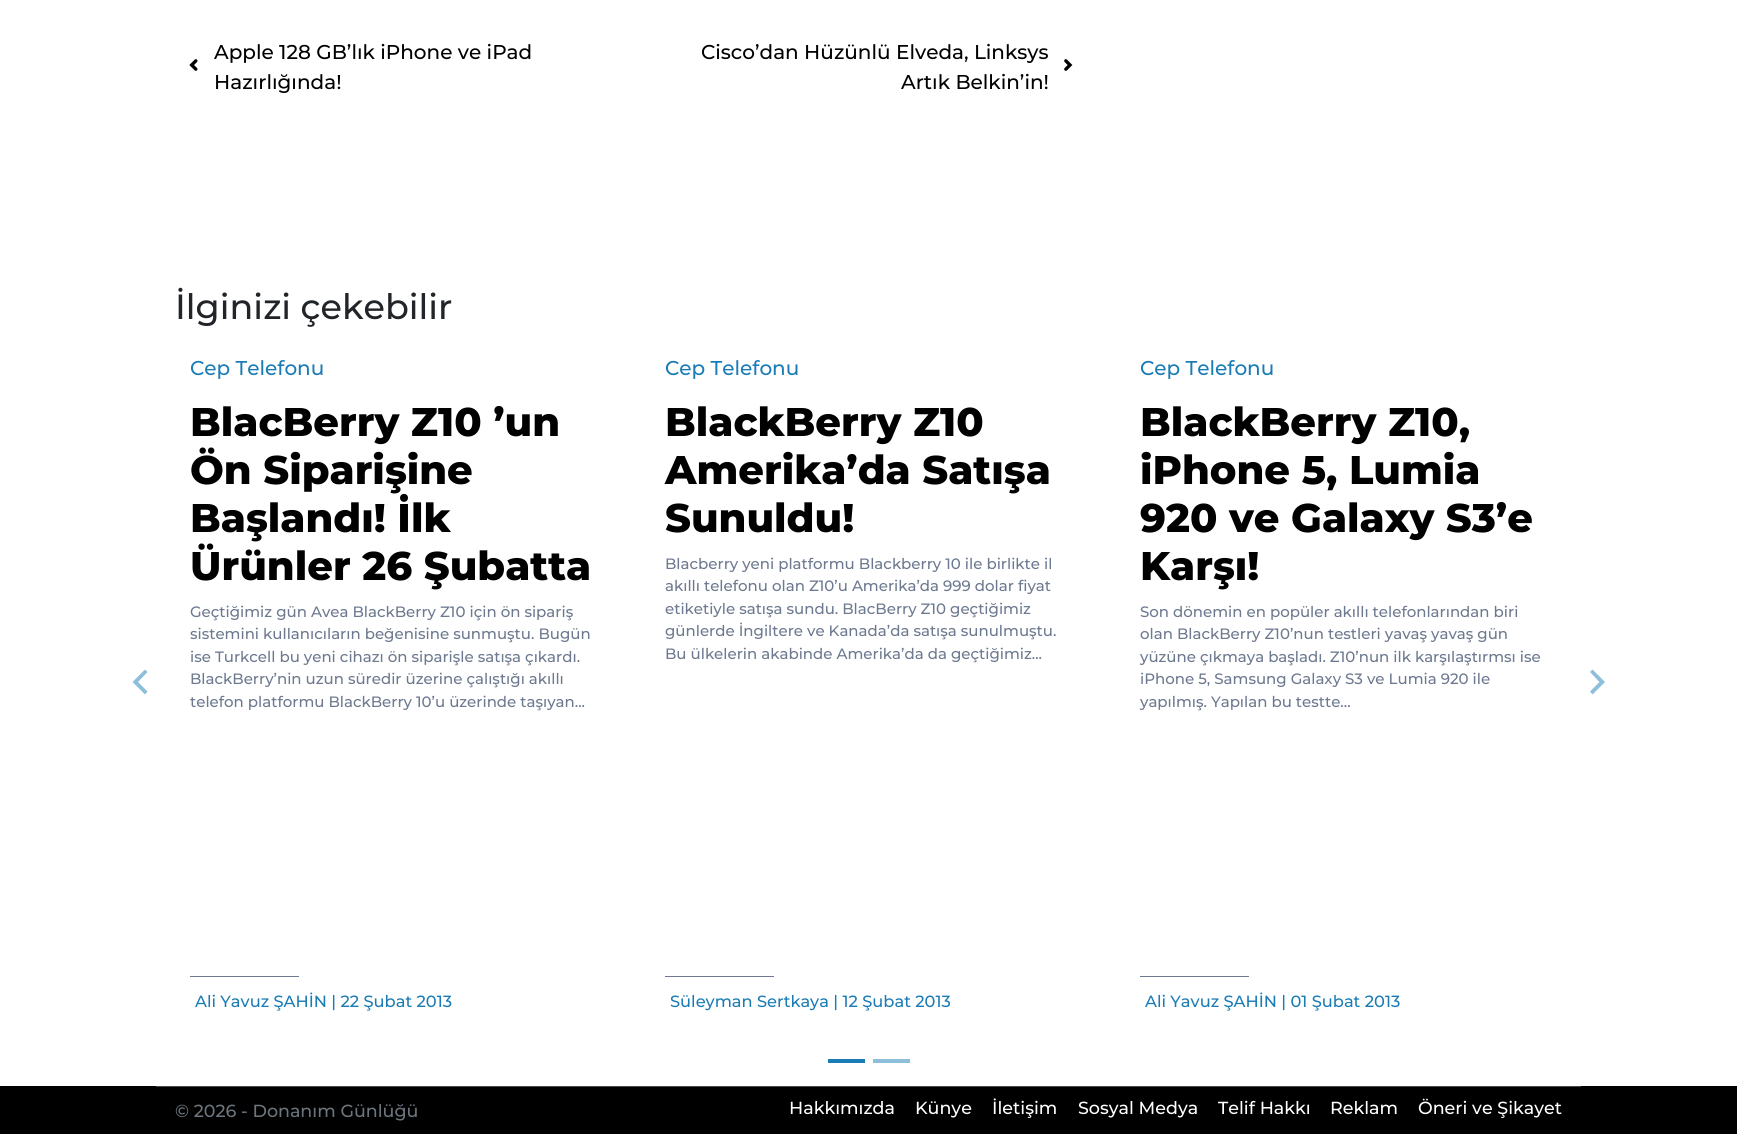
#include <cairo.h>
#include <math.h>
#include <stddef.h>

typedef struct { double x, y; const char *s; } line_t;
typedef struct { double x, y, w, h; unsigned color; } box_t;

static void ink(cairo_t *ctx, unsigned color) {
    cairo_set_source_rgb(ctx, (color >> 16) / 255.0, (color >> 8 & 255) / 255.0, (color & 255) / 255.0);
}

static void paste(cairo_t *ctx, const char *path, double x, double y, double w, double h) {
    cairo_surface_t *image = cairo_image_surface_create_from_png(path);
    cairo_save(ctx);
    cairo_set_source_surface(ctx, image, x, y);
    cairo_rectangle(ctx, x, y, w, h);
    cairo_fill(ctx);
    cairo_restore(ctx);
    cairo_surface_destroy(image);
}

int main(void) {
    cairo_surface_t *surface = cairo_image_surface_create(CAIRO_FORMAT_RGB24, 1737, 1134);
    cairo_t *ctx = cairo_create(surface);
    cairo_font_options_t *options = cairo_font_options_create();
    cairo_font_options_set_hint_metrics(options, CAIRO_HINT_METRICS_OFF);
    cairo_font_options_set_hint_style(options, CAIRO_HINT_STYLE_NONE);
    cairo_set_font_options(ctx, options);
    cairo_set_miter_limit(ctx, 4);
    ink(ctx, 0xFFFFFF);
    cairo_paint(ctx);
    cairo_select_font_face(ctx, "Montserrat Medium", CAIRO_FONT_SLANT_NORMAL, CAIRO_FONT_WEIGHT_NORMAL);
    cairo_set_font_size(ctx, 20);
    ink(ctx, 0x000000);
    cairo_move_to(ctx, 214, 59);
    cairo_show_text(ctx, "Apple 128 GB’lık iPhone ve iPad");
    paste(ctx, "media/1.png", 189, 59, 9, 12);
    cairo_move_to(ctx, 214, 89);
    cairo_show_text(ctx, "Hazırlığında!");
    cairo_move_to(ctx, 701, 59);
    cairo_show_text(ctx, "Cisco’dan Hüzünlü Elveda, Linksys");
    paste(ctx, "media/2.png", 1064, 59, 9, 12);
    cairo_move_to(ctx, 901, 89);
    cairo_show_text(ctx, "Artık Belkin’in!");
    cairo_set_font_size(ctx, 35);
    ink(ctx, 0x212529);
    cairo_move_to(ctx, 175, 319);
    cairo_show_text(ctx, "İlginizi çekebilir");
    ink(ctx, 0x8DBEDA);
    cairo_new_path(ctx);
    cairo_move_to(ctx, 147.5, 672);
    cairo_line_to(ctx, 145, 669.5);
    cairo_line_to(ctx, 132.5, 682);
    cairo_line_to(ctx, 145, 694.5);
    cairo_line_to(ctx, 147.5, 691.5);
    cairo_line_to(ctx, 138, 682);
    cairo_close_path(ctx);
    cairo_fill(ctx);
    cairo_set_font_size(ctx, 20);
    ink(ctx, 0x1B7CB5);
    cairo_move_to(ctx, 190, 375);
    cairo_show_text(ctx, "Cep Telefonu");
    cairo_select_font_face(ctx, "Montserrat ExtraBold", CAIRO_FONT_SLANT_NORMAL, CAIRO_FONT_WEIGHT_NORMAL);
    cairo_set_font_size(ctx, 40);
    ink(ctx, 0x000000);
    {
        static const line_t items[] = {
            {190, 436, "BlacBerry Z10 ’un"},
            {190, 484, "Ön Siparişine"},
            {190, 532, "Başlandı! İlk"},
            {190, 580, "Ürünler 26 Şubatta"},
        };
        for (size_t i = 0; i < sizeof items / sizeof *items; i++) {
            cairo_move_to(ctx, items[i].x, items[i].y);
            cairo_show_text(ctx, items[i].s);
        }
    }
    cairo_select_font_face(ctx, "Montserrat Medium", CAIRO_FONT_SLANT_NORMAL, CAIRO_FONT_WEIGHT_NORMAL);
    cairo_set_font_size(ctx, 15);
    ink(ctx, 0x6D798F);
    {
        static const line_t items[] = {
            {190, 617, "Geçtiğimiz gün Avea BlackBerry Z10 için ön sipariş"},
            {190, 639, "sistemini kullanıcıların beğenisine sunmuştu. Bugün"},
            {190, 662, "ise Turkcell bu yeni cihazı ön siparişle satışa çıkardı."},
            {190, 684, "BlackBerry’nin uzun süredir üzerine çalıştığı akıllı"},
            {190, 707, "telefon platformu BlackBerry 10’u üzerinde taşıyan..."},
        };
        for (size_t i = 0; i < sizeof items / sizeof *items; i++) {
            cairo_move_to(ctx, items[i].x, items[i].y);
            cairo_show_text(ctx, items[i].s);
        }
    }
    cairo_rectangle(ctx, 190, 976, 109, 1);
    cairo_fill(ctx);
    cairo_set_font_size(ctx, 16.25);
    ink(ctx, 0x1B7CB5);
    cairo_move_to(ctx, 195, 1007);
    cairo_show_text(ctx, "Ali Yavuz ŞAHİN | 22 Şubat 2013");
    cairo_set_font_size(ctx, 20);
    cairo_move_to(ctx, 665, 375);
    cairo_show_text(ctx, "Cep Telefonu");
    cairo_select_font_face(ctx, "Montserrat ExtraBold", CAIRO_FONT_SLANT_NORMAL, CAIRO_FONT_WEIGHT_NORMAL);
    cairo_set_font_size(ctx, 40);
    ink(ctx, 0x000000);
    {
        static const line_t items[] = {
            {665, 436, "BlackBerry Z10"},
            {665, 484, "Amerika’da Satışa"},
            {665, 532, "Sunuldu!"},
        };
        for (size_t i = 0; i < sizeof items / sizeof *items; i++) {
            cairo_move_to(ctx, items[i].x, items[i].y);
            cairo_show_text(ctx, items[i].s);
        }
    }
    cairo_select_font_face(ctx, "Montserrat Medium", CAIRO_FONT_SLANT_NORMAL, CAIRO_FONT_WEIGHT_NORMAL);
    cairo_set_font_size(ctx, 15);
    ink(ctx, 0x6D798F);
    {
        static const line_t items[] = {
            {665, 569, "Blacberry yeni platformu Blackberry 10 ile birlikte il"},
            {665, 591, "akıllı telefonu olan Z10’u Amerika’da 999 dolar fiyat"},
            {665, 614, "etiketiyle satışa sundu. BlacBerry Z10 geçtiğimiz"},
            {665, 636, "günlerde İngiltere ve Kanada’da satışa sunulmuştu."},
            {665, 659, "Bu ülkelerin akabinde Amerika’da da geçtiğimiz..."},
        };
        for (size_t i = 0; i < sizeof items / sizeof *items; i++) {
            cairo_move_to(ctx, items[i].x, items[i].y);
            cairo_show_text(ctx, items[i].s);
        }
    }
    cairo_rectangle(ctx, 665, 976, 109, 1);
    cairo_fill(ctx);
    cairo_set_font_size(ctx, 16.25);
    ink(ctx, 0x1B7CB5);
    cairo_move_to(ctx, 670, 1007);
    cairo_show_text(ctx, "Süleyman Sertkaya | 12 Şubat 2013");
    cairo_set_font_size(ctx, 20);
    cairo_move_to(ctx, 1140, 375);
    cairo_show_text(ctx, "Cep Telefonu");
    cairo_select_font_face(ctx, "Montserrat ExtraBold", CAIRO_FONT_SLANT_NORMAL, CAIRO_FONT_WEIGHT_NORMAL);
    cairo_set_font_size(ctx, 40);
    ink(ctx, 0x000000);
    {
        static const line_t items[] = {
            {1140, 436, "BlackBerry Z10,"},
            {1140, 484, "iPhone 5, Lumia"},
            {1140, 532, "920 ve Galaxy S3’e"},
            {1140, 580, "Karşı!"},
        };
        for (size_t i = 0; i < sizeof items / sizeof *items; i++) {
            cairo_move_to(ctx, items[i].x, items[i].y);
            cairo_show_text(ctx, items[i].s);
        }
    }
    cairo_select_font_face(ctx, "Montserrat Medium", CAIRO_FONT_SLANT_NORMAL, CAIRO_FONT_WEIGHT_NORMAL);
    cairo_set_font_size(ctx, 15);
    ink(ctx, 0x6D798F);
    {
        static const line_t items[] = {
            {1140, 617, "Son dönemin en popüler akıllı telefonlarından biri"},
            {1140, 639, "olan BlackBerry Z10’nun testleri yavaş yavaş gün"},
            {1140, 662, "yüzüne çıkmaya başladı. Z10’nun ilk karşılaştırmsı ise"},
            {1140, 684, "iPhone 5, Samsung Galaxy S3 ve Lumia 920 ile"},
            {1140, 707, "yapılmış. Yapılan bu testte..."},
        };
        for (size_t i = 0; i < sizeof items / sizeof *items; i++) {
            cairo_move_to(ctx, items[i].x, items[i].y);
            cairo_show_text(ctx, items[i].s);
        }
    }
    cairo_rectangle(ctx, 1140, 976, 109, 1);
    cairo_fill(ctx);
    cairo_set_font_size(ctx, 16.25);
    ink(ctx, 0x1B7CB5);
    cairo_move_to(ctx, 1145, 1007);
    cairo_show_text(ctx, "Ali Yavuz ŞAHİN | 01 Şubat 2013");
    ink(ctx, 0x8DBEDA);
    cairo_new_path(ctx);
    cairo_move_to(ctx, 1590, 672);
    cairo_line_to(ctx, 1592.5, 669.5);
    cairo_line_to(ctx, 1605, 682);
    cairo_line_to(ctx, 1592.5, 694.5);
    cairo_line_to(ctx, 1590, 691.5);
    cairo_line_to(ctx, 1599.5, 682);
    cairo_close_path(ctx);
    cairo_fill(ctx);
    {
        static const box_t items[] = {
            {828, 1059, 37, 4, 0x1B7CB5},
            {873, 1059, 37, 4, 0x8DBEDA},
            {0, 1086, 1737, 48, 0x000000},
            {156, 1086, 1425, 1, 0x484848},
        };
        for (size_t i = 0; i < sizeof items / sizeof *items; i++) {
            ink(ctx, items[i].color);
            cairo_rectangle(ctx, items[i].x, items[i].y, items[i].w, items[i].h);
            cairo_fill(ctx);
        }
    }
    cairo_set_font_size(ctx, 17.5);
    ink(ctx, 0x6C757D);
    cairo_move_to(ctx, 175, 1117);
    cairo_show_text(ctx, "© 2026 - Donanım Günlüğü");
    ink(ctx, 0xFFFFFF);
    {
        static const line_t items[] = {
            {789, 1114, "Hakkımızda"},
            {915, 1114, "Künye"},
            {992, 1114, "İletişim"},
            {1078, 1114, "Sosyal Medya"},
            {1218, 1114, "Telif Hakkı"},
            {1330, 1114, "Reklam"},
            {1418, 1114, "Öneri ve Şikayet"},
        };
        for (size_t i = 0; i < sizeof items / sizeof *items; i++) {
            cairo_move_to(ctx, items[i].x, items[i].y);
            cairo_show_text(ctx, items[i].s);
        }
    }
    cairo_surface_write_to_png(surface, "image.png");
    cairo_font_options_destroy(options);
    cairo_destroy(ctx);
    cairo_surface_destroy(surface);
    return 0;
}
